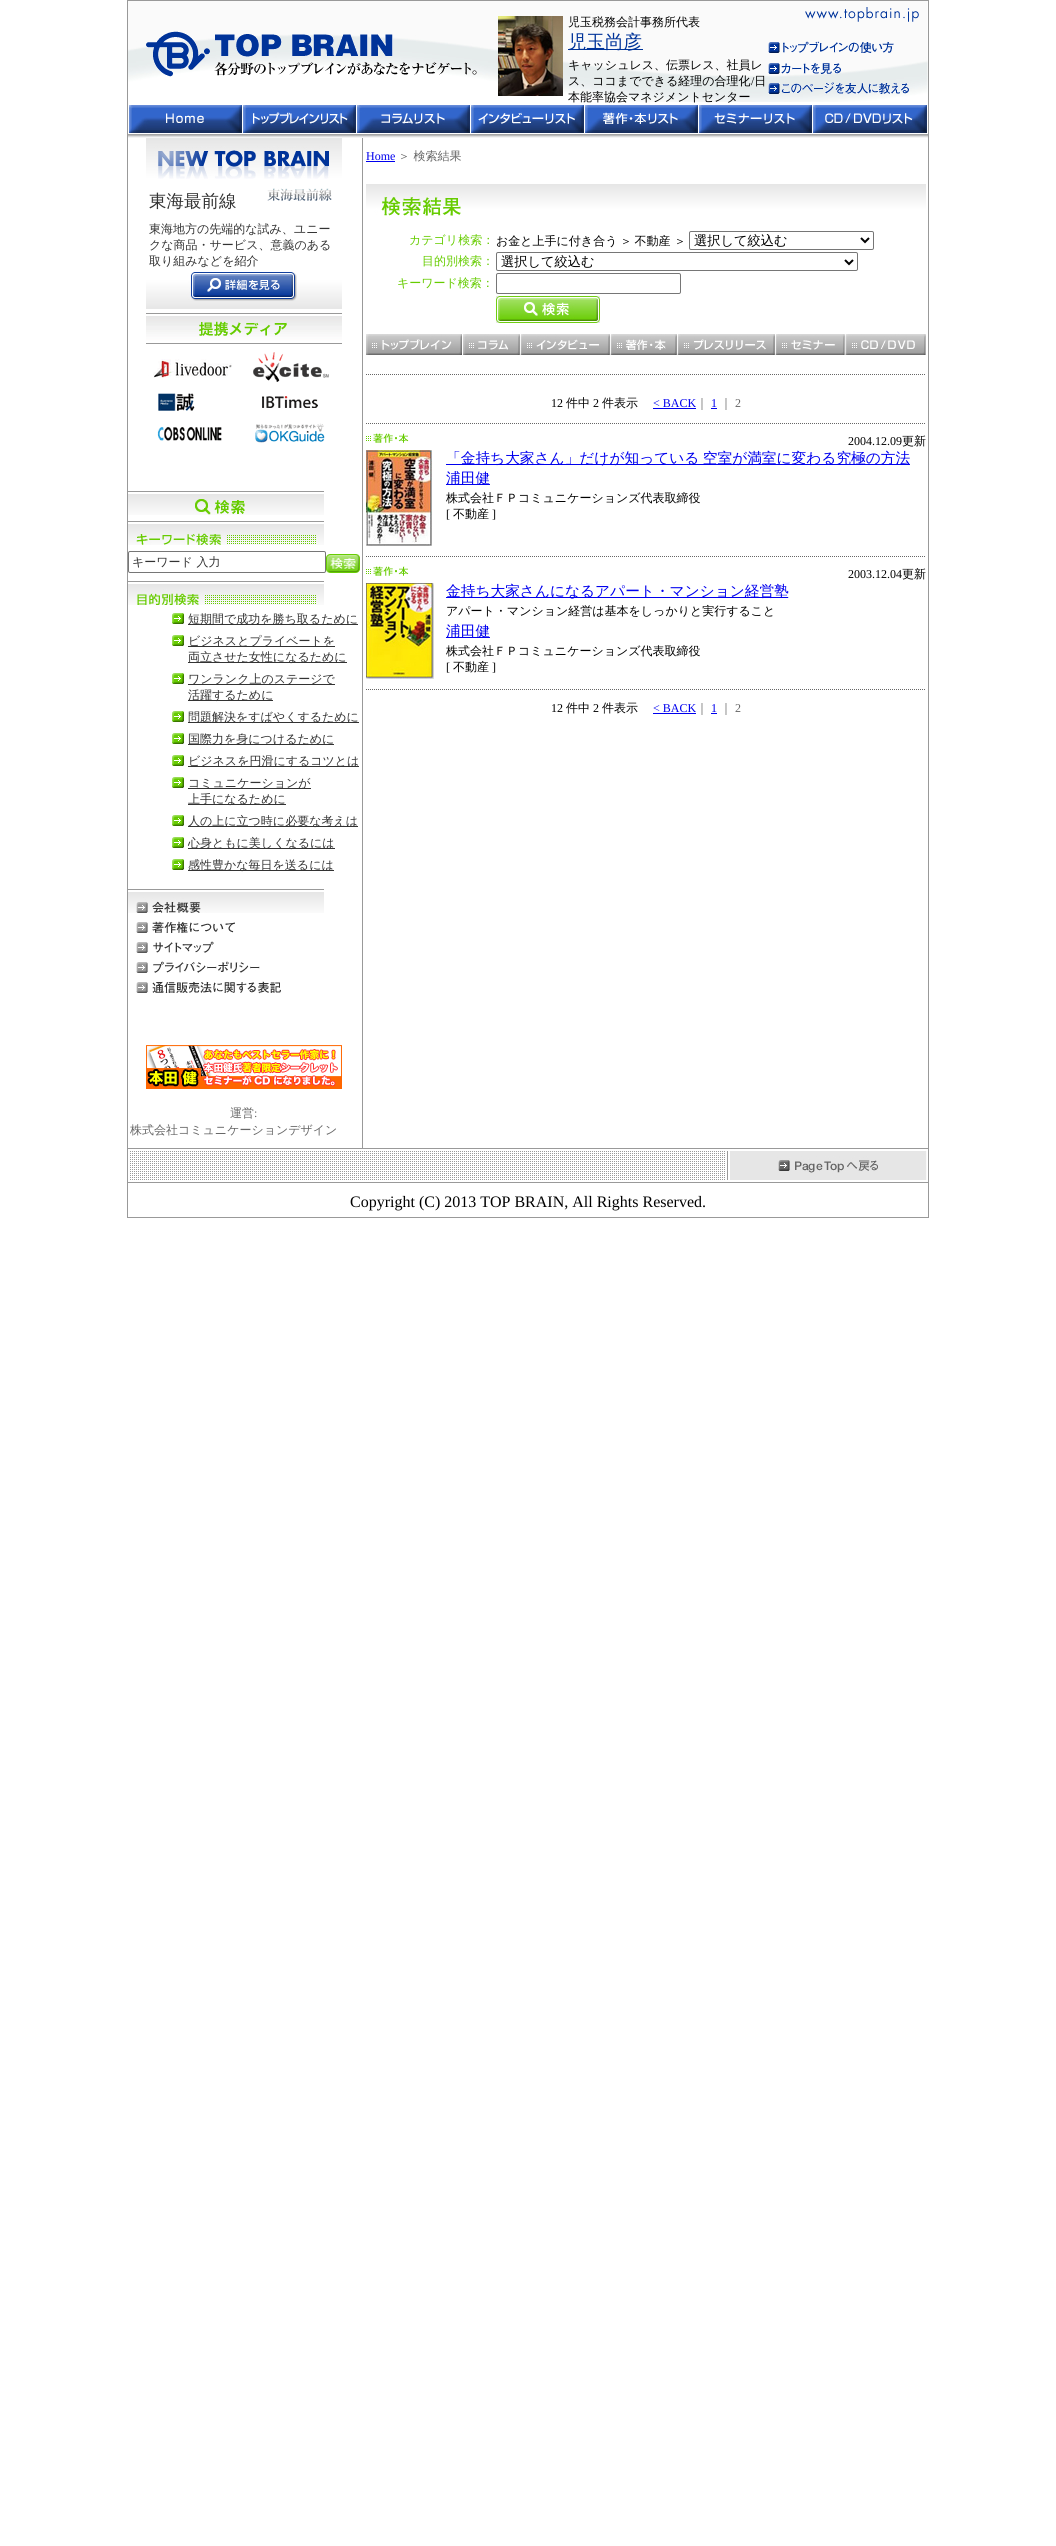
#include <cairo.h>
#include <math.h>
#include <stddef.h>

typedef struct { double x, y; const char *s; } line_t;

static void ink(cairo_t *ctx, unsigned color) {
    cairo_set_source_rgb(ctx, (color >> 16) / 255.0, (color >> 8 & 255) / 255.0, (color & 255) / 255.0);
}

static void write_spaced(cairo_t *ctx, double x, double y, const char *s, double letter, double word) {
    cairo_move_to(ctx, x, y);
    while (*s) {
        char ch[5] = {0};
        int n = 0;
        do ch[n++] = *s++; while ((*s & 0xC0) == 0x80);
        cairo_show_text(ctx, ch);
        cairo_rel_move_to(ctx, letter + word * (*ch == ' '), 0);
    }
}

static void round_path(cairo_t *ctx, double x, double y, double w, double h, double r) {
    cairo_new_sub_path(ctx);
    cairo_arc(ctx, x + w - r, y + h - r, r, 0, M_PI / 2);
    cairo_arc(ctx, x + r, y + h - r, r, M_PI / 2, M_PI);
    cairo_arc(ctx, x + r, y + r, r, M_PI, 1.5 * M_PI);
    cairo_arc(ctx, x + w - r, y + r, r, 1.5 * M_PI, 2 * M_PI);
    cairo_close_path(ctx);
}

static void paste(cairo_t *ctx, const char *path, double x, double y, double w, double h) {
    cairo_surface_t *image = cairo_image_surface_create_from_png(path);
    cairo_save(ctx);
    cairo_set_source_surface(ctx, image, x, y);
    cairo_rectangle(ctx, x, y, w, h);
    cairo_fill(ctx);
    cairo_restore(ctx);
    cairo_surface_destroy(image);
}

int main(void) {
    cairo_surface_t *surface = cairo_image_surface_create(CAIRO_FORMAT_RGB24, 1056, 2546);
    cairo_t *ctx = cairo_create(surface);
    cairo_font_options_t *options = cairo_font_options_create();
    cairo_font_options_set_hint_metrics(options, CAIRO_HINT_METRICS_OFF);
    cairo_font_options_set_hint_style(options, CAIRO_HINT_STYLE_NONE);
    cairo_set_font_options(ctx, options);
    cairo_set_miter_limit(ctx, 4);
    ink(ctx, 0xFFFFFF);
    cairo_paint(ctx);
    cairo_rectangle(ctx, 127.5, 0.5, 801, 1217);
    ink(ctx, 0x999999);
    cairo_set_line_width(ctx, 1);
    cairo_stroke(ctx);
    paste(ctx, "media/1.png", 128, 1, 800, 101);
    paste(ctx, "media/2.png", 805, 7, 114, 15);
    paste(ctx, "media/3.png", 146, 31, 331, 46);
    paste(ctx, "media/4.png", 498, 16, 65, 80);
    cairo_select_font_face(ctx, "WenQuanYi Zen Hei Medium", CAIRO_FONT_SLANT_NORMAL, CAIRO_FONT_WEIGHT_NORMAL);
    cairo_set_font_size(ctx, 12);
    ink(ctx, 0x000000);
    cairo_move_to(ctx, 568, 26);
    cairo_show_text(ctx, "児玉税務会計事務所代表");
    ink(ctx, 0x003399);
    cairo_rectangle(ctx, 568, 49, 75, 1);
    cairo_fill(ctx);
    cairo_set_font_size(ctx, 18.5);
    cairo_move_to(ctx, 568, 48);
    cairo_show_text(ctx, "児玉尚彦");
    cairo_set_font_size(ctx, 12);
    ink(ctx, 0x000000);
    cairo_move_to(ctx, 568, 69);
    cairo_show_text(ctx, "キャッシュレス、伝票レス、社員レ");
    cairo_move_to(ctx, 568, 85);
    cairo_show_text(ctx, "ス、ココまでできる経理の合理化 日");
    cairo_select_font_face(ctx, "Liberation Serif", CAIRO_FONT_SLANT_NORMAL, CAIRO_FONT_WEIGHT_NORMAL);
    cairo_move_to(ctx, 751, 85);
    cairo_show_text(ctx, "/");
    cairo_select_font_face(ctx, "WenQuanYi Zen Hei Medium", CAIRO_FONT_SLANT_NORMAL, CAIRO_FONT_WEIGHT_NORMAL);
    cairo_move_to(ctx, 568, 101);
    cairo_show_text(ctx, "本能率協会マネジメントセンター");
    paste(ctx, "media/5.png", 768, 41, 126, 12);
    paste(ctx, "media/6.png", 768, 63, 73, 11);
    paste(ctx, "media/7.png", 768, 82, 141, 12);
    paste(ctx, "media/8.png", 128, 105, 115, 33);
    paste(ctx, "media/9.png", 243, 105, 114, 33);
    paste(ctx, "media/10.png", 357, 105, 114, 33);
    paste(ctx, "media/11.png", 471, 105, 114, 33);
    paste(ctx, "media/12.png", 585, 105, 114, 33);
    paste(ctx, "media/13.png", 699, 105, 114, 33);
    paste(ctx, "media/14.png", 813, 105, 115, 33);
    paste(ctx, "media/15.png", 146, 138, 196, 41);
    cairo_set_font_size(ctx, 17.5);
    ink(ctx, 0x333333);
    cairo_move_to(ctx, 149, 207);
    cairo_show_text(ctx, "東海最前線");
    paste(ctx, "media/16.png", 267, 188, 65, 13);
    cairo_set_font_size(ctx, 12);
    {
        static const line_t items[] = {
            {149, 233, "東海地方の先端的な試み、ユニー"},
            {149, 249, "クな商品・サービス、意義のある"},
            {149, 265, "取り組みなどを紹介"},
        };
        for (size_t i = 0; i < sizeof items / sizeof *items; i++) {
            cairo_move_to(ctx, items[i].x, items[i].y);
            cairo_show_text(ctx, items[i].s);
        }
    }
    paste(ctx, "media/17.png", 146, 272, 196, 37);
    paste(ctx, "media/18.png", 146, 313, 196, 130);
    paste(ctx, "media/19.png", 128, 491, 196, 24);
    paste(ctx, "media/20.png", 128, 521, 196, 24);
    round_path(ctx, 128.5, 551.5, 197, 21, 1.5);
    ink(ctx, 0x767676);
    cairo_stroke(ctx);
    ink(ctx, 0x333333);
    cairo_move_to(ctx, 132, 566);
    cairo_show_text(ctx, "キーワード 入力");
    paste(ctx, "media/21.png", 326, 554, 34, 19);
    paste(ctx, "media/22.png", 128, 581, 196, 24);
    paste(ctx, "media/23.png", 172, 613, 12, 11);
    cairo_rectangle(ctx, 188, 624, 170, 1);
    cairo_fill(ctx);
    cairo_move_to(ctx, 188, 623);
    cairo_show_text(ctx, "短期間で成功を勝ち取るために");
    paste(ctx, "media/23.png", 172, 635, 12, 11);
    cairo_rectangle(ctx, 188, 646, 147, 1);
    cairo_fill(ctx);
    cairo_move_to(ctx, 188, 645);
    cairo_show_text(ctx, "ビジネスとプライベートを");
    cairo_rectangle(ctx, 188, 662, 159, 1);
    cairo_fill(ctx);
    cairo_move_to(ctx, 188, 661);
    cairo_show_text(ctx, "両立させた女性になるために");
    paste(ctx, "media/23.png", 172, 673, 12, 11);
    cairo_rectangle(ctx, 188, 684, 147, 1);
    cairo_fill(ctx);
    cairo_move_to(ctx, 188, 683);
    cairo_show_text(ctx, "ワンランク上のステージで");
    cairo_rectangle(ctx, 188, 700, 85, 1);
    cairo_fill(ctx);
    cairo_move_to(ctx, 188, 699);
    cairo_show_text(ctx, "活躍するために");
    paste(ctx, "media/23.png", 172, 711, 12, 11);
    cairo_rectangle(ctx, 188, 722, 171, 1);
    cairo_fill(ctx);
    cairo_move_to(ctx, 188, 721);
    cairo_show_text(ctx, "問題解決をすばやくするために");
    paste(ctx, "media/23.png", 172, 733, 12, 11);
    cairo_rectangle(ctx, 188, 744, 146, 1);
    cairo_fill(ctx);
    cairo_move_to(ctx, 188, 743);
    cairo_show_text(ctx, "国際力を身につけるために");
    paste(ctx, "media/23.png", 172, 755, 12, 11);
    cairo_rectangle(ctx, 188, 766, 171, 1);
    cairo_fill(ctx);
    cairo_move_to(ctx, 188, 765);
    cairo_show_text(ctx, "ビジネスを円滑にするコツとは");
    paste(ctx, "media/23.png", 172, 777, 12, 11);
    cairo_rectangle(ctx, 188, 788, 123, 1);
    cairo_fill(ctx);
    cairo_move_to(ctx, 188, 787);
    cairo_show_text(ctx, "コミュニケーションが");
    cairo_rectangle(ctx, 188, 804, 98, 1);
    cairo_fill(ctx);
    cairo_move_to(ctx, 188, 803);
    cairo_show_text(ctx, "上手になるために");
    paste(ctx, "media/23.png", 172, 815, 12, 11);
    cairo_rectangle(ctx, 188, 826, 170, 1);
    cairo_fill(ctx);
    cairo_move_to(ctx, 188, 825);
    cairo_show_text(ctx, "人の上に立つ時に必要な考えは");
    paste(ctx, "media/23.png", 172, 837, 12, 11);
    cairo_rectangle(ctx, 188, 848, 147, 1);
    cairo_fill(ctx);
    cairo_move_to(ctx, 188, 847);
    cairo_show_text(ctx, "心身ともに美しくなるには");
    paste(ctx, "media/23.png", 172, 859, 12, 11);
    cairo_rectangle(ctx, 188, 870, 146, 1);
    cairo_fill(ctx);
    cairo_move_to(ctx, 188, 869);
    cairo_show_text(ctx, "感性豊かな毎日を送るには");
    paste(ctx, "media/24.png", 128, 889, 196, 24);
    paste(ctx, "media/25.png", 136, 921, 99, 12);
    paste(ctx, "media/26.png", 136, 941, 78, 12);
    paste(ctx, "media/27.png", 136, 961, 124, 12);
    paste(ctx, "media/28.png", 136, 981, 145, 13);
    paste(ctx, "media/29.png", 146, 1045, 196, 44);
    ink(ctx, 0x666666);
    cairo_move_to(ctx, 230, 1117);
    cairo_show_text(ctx, "運営");
    cairo_select_font_face(ctx, "Liberation Serif", CAIRO_FONT_SLANT_NORMAL, CAIRO_FONT_WEIGHT_NORMAL);
    cairo_move_to(ctx, 254, 1117);
    cairo_show_text(ctx, ":");
    cairo_select_font_face(ctx, "WenQuanYi Zen Hei Medium", CAIRO_FONT_SLANT_NORMAL, CAIRO_FONT_WEIGHT_NORMAL);
    cairo_move_to(ctx, 130, 1134);
    cairo_show_text(ctx, "株式会社コミュニケーションデザイン");
    ink(ctx, 0x999999);
    cairo_rectangle(ctx, 362, 138, 1, 1010);
    cairo_fill(ctx);
    cairo_select_font_face(ctx, "Liberation Serif", CAIRO_FONT_SLANT_NORMAL, CAIRO_FONT_WEIGHT_NORMAL);
    ink(ctx, 0x0000EE);
    cairo_move_to(ctx, 366, 160);
    cairo_show_text(ctx, "Home");
    cairo_rectangle(ctx, 366, 161, 29, 1);
    cairo_fill(ctx);
    cairo_select_font_face(ctx, "WenQuanYi Zen Hei Medium", CAIRO_FONT_SLANT_NORMAL, CAIRO_FONT_WEIGHT_NORMAL);
    ink(ctx, 0x666666);
    cairo_move_to(ctx, 398, 160);
    cairo_show_text(ctx, "＞ 検索結果");
    paste(ctx, "media/30.png", 366, 184, 560, 32);
    ink(ctx, 0x66CC00);
    cairo_move_to(ctx, 409, 244);
    cairo_show_text(ctx, "カテゴリ検索：");
    ink(ctx, 0x000000);
    write_spaced(ctx, 496, 245, "お金と上手に付き合う ＞ 不動産", 0, -1);
    cairo_move_to(ctx, 674, 245);
    cairo_show_text(ctx, "＞");
    round_path(ctx, 689.5, 231.5, 184, 18, 1.5);
    ink(ctx, 0x767676);
    cairo_stroke(ctx);
    cairo_new_path(ctx);
    cairo_move_to(ctx, 861, 238);
    cairo_line_to(ctx, 865, 242);
    cairo_line_to(ctx, 869, 238);
    ink(ctx, 0x000000);
    cairo_set_line_width(ctx, 2);
    cairo_stroke(ctx);
    cairo_set_font_size(ctx, 13.25);
    cairo_move_to(ctx, 694, 245);
    cairo_show_text(ctx, "選択して絞込む");
    cairo_set_font_size(ctx, 12);
    ink(ctx, 0x66CC00);
    cairo_move_to(ctx, 422, 265);
    cairo_show_text(ctx, "目的別検索：");
    round_path(ctx, 496.5, 252.5, 361, 18, 1.5);
    ink(ctx, 0x767676);
    cairo_set_line_width(ctx, 1);
    cairo_stroke(ctx);
    cairo_new_path(ctx);
    cairo_move_to(ctx, 845, 260);
    cairo_line_to(ctx, 849, 264);
    cairo_line_to(ctx, 853, 260);
    ink(ctx, 0x000000);
    cairo_set_line_width(ctx, 2);
    cairo_stroke(ctx);
    cairo_set_font_size(ctx, 13.25);
    cairo_move_to(ctx, 501, 266);
    cairo_show_text(ctx, "選択して絞込む");
    cairo_set_font_size(ctx, 12);
    ink(ctx, 0x66CC00);
    cairo_move_to(ctx, 397, 287);
    cairo_show_text(ctx, "キーワード検索：");
    round_path(ctx, 496.5, 273.5, 184, 20, 1.5);
    ink(ctx, 0x767676);
    cairo_set_line_width(ctx, 1);
    cairo_stroke(ctx);
    paste(ctx, "media/31.png", 496, 296, 104, 27);
    paste(ctx, "media/32.png", 366, 334, 96, 21);
    paste(ctx, "media/33.png", 463, 334, 57, 21);
    paste(ctx, "media/34.png", 520, 334, 90, 21);
    paste(ctx, "media/35.png", 610, 334, 67, 21);
    paste(ctx, "media/36.png", 677, 334, 98, 21);
    paste(ctx, "media/37.png", 775, 334, 70, 21);
    paste(ctx, "media/38.png", 845, 334, 81, 21);
    paste(ctx, "media/39.png", 366, 374, 559, 1);
    cairo_select_font_face(ctx, "Liberation Serif", CAIRO_FONT_SLANT_NORMAL, CAIRO_FONT_WEIGHT_NORMAL);
    ink(ctx, 0x000000);
    cairo_move_to(ctx, 551, 407);
    cairo_show_text(ctx, "12");
    cairo_select_font_face(ctx, "WenQuanYi Zen Hei Medium", CAIRO_FONT_SLANT_NORMAL, CAIRO_FONT_WEIGHT_NORMAL);
    cairo_move_to(ctx, 566, 407);
    cairo_show_text(ctx, "件中");
    cairo_select_font_face(ctx, "Liberation Serif", CAIRO_FONT_SLANT_NORMAL, CAIRO_FONT_WEIGHT_NORMAL);
    cairo_move_to(ctx, 593, 407);
    cairo_show_text(ctx, "2");
    cairo_select_font_face(ctx, "WenQuanYi Zen Hei Medium", CAIRO_FONT_SLANT_NORMAL, CAIRO_FONT_WEIGHT_NORMAL);
    cairo_move_to(ctx, 602, 407);
    cairo_show_text(ctx, "件表示");
    cairo_select_font_face(ctx, "Liberation Serif", CAIRO_FONT_SLANT_NORMAL, CAIRO_FONT_WEIGHT_NORMAL);
    ink(ctx, 0x0000EE);
    cairo_move_to(ctx, 653, 407);
    cairo_show_text(ctx, "< BACK");
    cairo_rectangle(ctx, 653, 408, 43, 1);
    cairo_fill(ctx);
    cairo_select_font_face(ctx, "WenQuanYi Zen Hei Medium", CAIRO_FONT_SLANT_NORMAL, CAIRO_FONT_WEIGHT_NORMAL);
    ink(ctx, 0x666666);
    cairo_move_to(ctx, 696, 407);
    cairo_show_text(ctx, "｜");
    cairo_select_font_face(ctx, "Liberation Serif", CAIRO_FONT_SLANT_NORMAL, CAIRO_FONT_WEIGHT_NORMAL);
    ink(ctx, 0x0000EE);
    cairo_move_to(ctx, 711, 407);
    cairo_show_text(ctx, "1");
    cairo_rectangle(ctx, 711, 408, 6, 1);
    cairo_fill(ctx);
    cairo_select_font_face(ctx, "WenQuanYi Zen Hei Medium", CAIRO_FONT_SLANT_NORMAL, CAIRO_FONT_WEIGHT_NORMAL);
    ink(ctx, 0x666666);
    cairo_move_to(ctx, 720, 407);
    cairo_show_text(ctx, "｜");
    cairo_select_font_face(ctx, "Liberation Serif", CAIRO_FONT_SLANT_NORMAL, CAIRO_FONT_WEIGHT_NORMAL);
    cairo_move_to(ctx, 735, 407);
    cairo_show_text(ctx, "2");
    paste(ctx, "media/39.png", 366, 423, 559, 1);
    paste(ctx, "media/40.png", 366, 433, 43, 10);
    ink(ctx, 0x000000);
    cairo_move_to(ctx, 848, 445);
    cairo_show_text(ctx, "2004.12.09");
    cairo_select_font_face(ctx, "WenQuanYi Zen Hei Medium", CAIRO_FONT_SLANT_NORMAL, CAIRO_FONT_WEIGHT_NORMAL);
    cairo_move_to(ctx, 902, 445);
    cairo_show_text(ctx, "更新");
    paste(ctx, "media/41.png", 366, 450, 66, 96);
    ink(ctx, 0x0000EE);
    cairo_rectangle(ctx, 446, 464, 464, 1);
    cairo_fill(ctx);
    cairo_set_font_size(ctx, 14.7);
    write_spaced(ctx, 446, 463, "「金持ち大家さん」だけが知っている 空室が満室に変わる究極の方法", 0, -1);
    cairo_rectangle(ctx, 446, 484, 44, 1);
    cairo_fill(ctx);
    cairo_move_to(ctx, 446, 483);
    cairo_show_text(ctx, "浦田健");
    cairo_set_font_size(ctx, 12);
    ink(ctx, 0x000000);
    cairo_move_to(ctx, 446, 502);
    cairo_show_text(ctx, "株式会社ＦＰコミュニケーションズ代表取締役");
    cairo_select_font_face(ctx, "Liberation Serif", CAIRO_FONT_SLANT_NORMAL, CAIRO_FONT_WEIGHT_NORMAL);
    cairo_move_to(ctx, 446, 518);
    cairo_show_text(ctx, "[");
    cairo_select_font_face(ctx, "WenQuanYi Zen Hei Medium", CAIRO_FONT_SLANT_NORMAL, CAIRO_FONT_WEIGHT_NORMAL);
    cairo_move_to(ctx, 453, 518);
    cairo_show_text(ctx, "不動産");
    cairo_select_font_face(ctx, "Liberation Serif", CAIRO_FONT_SLANT_NORMAL, CAIRO_FONT_WEIGHT_NORMAL);
    cairo_move_to(ctx, 492, 518);
    cairo_show_text(ctx, "]");
    paste(ctx, "media/39.png", 366, 556, 559, 1);
    paste(ctx, "media/40.png", 366, 566, 43, 10);
    cairo_move_to(ctx, 848, 578);
    cairo_show_text(ctx, "2003.12.04");
    cairo_select_font_face(ctx, "WenQuanYi Zen Hei Medium", CAIRO_FONT_SLANT_NORMAL, CAIRO_FONT_WEIGHT_NORMAL);
    cairo_move_to(ctx, 902, 578);
    cairo_show_text(ctx, "更新");
    paste(ctx, "media/42.png", 366, 583, 68, 96);
    ink(ctx, 0x0000EE);
    cairo_rectangle(ctx, 446, 597, 342, 1);
    cairo_fill(ctx);
    cairo_set_font_size(ctx, 14.7);
    cairo_move_to(ctx, 446, 596);
    cairo_show_text(ctx, "金持ち大家さんになるアパート・マンション経営塾");
    cairo_set_font_size(ctx, 12);
    ink(ctx, 0x000000);
    cairo_move_to(ctx, 446, 615);
    cairo_show_text(ctx, "アパート・マンション経営は基本をしっかりと実行すること");
    ink(ctx, 0x0000EE);
    cairo_rectangle(ctx, 446, 637, 44, 1);
    cairo_fill(ctx);
    cairo_set_font_size(ctx, 14.7);
    cairo_move_to(ctx, 446, 636);
    cairo_show_text(ctx, "浦田健");
    cairo_set_font_size(ctx, 12);
    ink(ctx, 0x000000);
    cairo_move_to(ctx, 446, 655);
    cairo_show_text(ctx, "株式会社ＦＰコミュニケーションズ代表取締役");
    cairo_select_font_face(ctx, "Liberation Serif", CAIRO_FONT_SLANT_NORMAL, CAIRO_FONT_WEIGHT_NORMAL);
    cairo_move_to(ctx, 446, 671);
    cairo_show_text(ctx, "[");
    cairo_select_font_face(ctx, "WenQuanYi Zen Hei Medium", CAIRO_FONT_SLANT_NORMAL, CAIRO_FONT_WEIGHT_NORMAL);
    cairo_move_to(ctx, 453, 671);
    cairo_show_text(ctx, "不動産");
    cairo_select_font_face(ctx, "Liberation Serif", CAIRO_FONT_SLANT_NORMAL, CAIRO_FONT_WEIGHT_NORMAL);
    cairo_move_to(ctx, 492, 671);
    cairo_show_text(ctx, "]");
    paste(ctx, "media/39.png", 366, 689, 559, 1);
    cairo_move_to(ctx, 551, 712);
    cairo_show_text(ctx, "12");
    cairo_select_font_face(ctx, "WenQuanYi Zen Hei Medium", CAIRO_FONT_SLANT_NORMAL, CAIRO_FONT_WEIGHT_NORMAL);
    cairo_move_to(ctx, 566, 712);
    cairo_show_text(ctx, "件中");
    cairo_select_font_face(ctx, "Liberation Serif", CAIRO_FONT_SLANT_NORMAL, CAIRO_FONT_WEIGHT_NORMAL);
    cairo_move_to(ctx, 593, 712);
    cairo_show_text(ctx, "2");
    cairo_select_font_face(ctx, "WenQuanYi Zen Hei Medium", CAIRO_FONT_SLANT_NORMAL, CAIRO_FONT_WEIGHT_NORMAL);
    cairo_move_to(ctx, 602, 712);
    cairo_show_text(ctx, "件表示");
    cairo_select_font_face(ctx, "Liberation Serif", CAIRO_FONT_SLANT_NORMAL, CAIRO_FONT_WEIGHT_NORMAL);
    ink(ctx, 0x0000EE);
    cairo_move_to(ctx, 653, 712);
    cairo_show_text(ctx, "< BACK");
    cairo_rectangle(ctx, 653, 713, 43, 1);
    cairo_fill(ctx);
    cairo_select_font_face(ctx, "WenQuanYi Zen Hei Medium", CAIRO_FONT_SLANT_NORMAL, CAIRO_FONT_WEIGHT_NORMAL);
    ink(ctx, 0x666666);
    cairo_move_to(ctx, 696, 712);
    cairo_show_text(ctx, "｜");
    cairo_select_font_face(ctx, "Liberation Serif", CAIRO_FONT_SLANT_NORMAL, CAIRO_FONT_WEIGHT_NORMAL);
    ink(ctx, 0x0000EE);
    cairo_move_to(ctx, 711, 712);
    cairo_show_text(ctx, "1");
    cairo_rectangle(ctx, 711, 713, 6, 1);
    cairo_fill(ctx);
    cairo_select_font_face(ctx, "WenQuanYi Zen Hei Medium", CAIRO_FONT_SLANT_NORMAL, CAIRO_FONT_WEIGHT_NORMAL);
    ink(ctx, 0x666666);
    cairo_move_to(ctx, 720, 712);
    cairo_show_text(ctx, "｜");
    cairo_select_font_face(ctx, "Liberation Serif", CAIRO_FONT_SLANT_NORMAL, CAIRO_FONT_WEIGHT_NORMAL);
    cairo_move_to(ctx, 735, 712);
    cairo_show_text(ctx, "2");
    paste(ctx, "media/43.png", 128, 1148, 600, 35);
    paste(ctx, "media/44.png", 728, 1148, 200, 35);
    cairo_set_font_size(ctx, 16);
    ink(ctx, 0x000000);
    cairo_move_to(ctx, 350, 1207);
    cairo_show_text(ctx, "Copyright (C) 2013 TOP BRAIN, All Rights Reserved.");
    cairo_surface_write_to_png(surface, "image.png");
    cairo_font_options_destroy(options);
    cairo_destroy(ctx);
    cairo_surface_destroy(surface);
    return 0;
}
